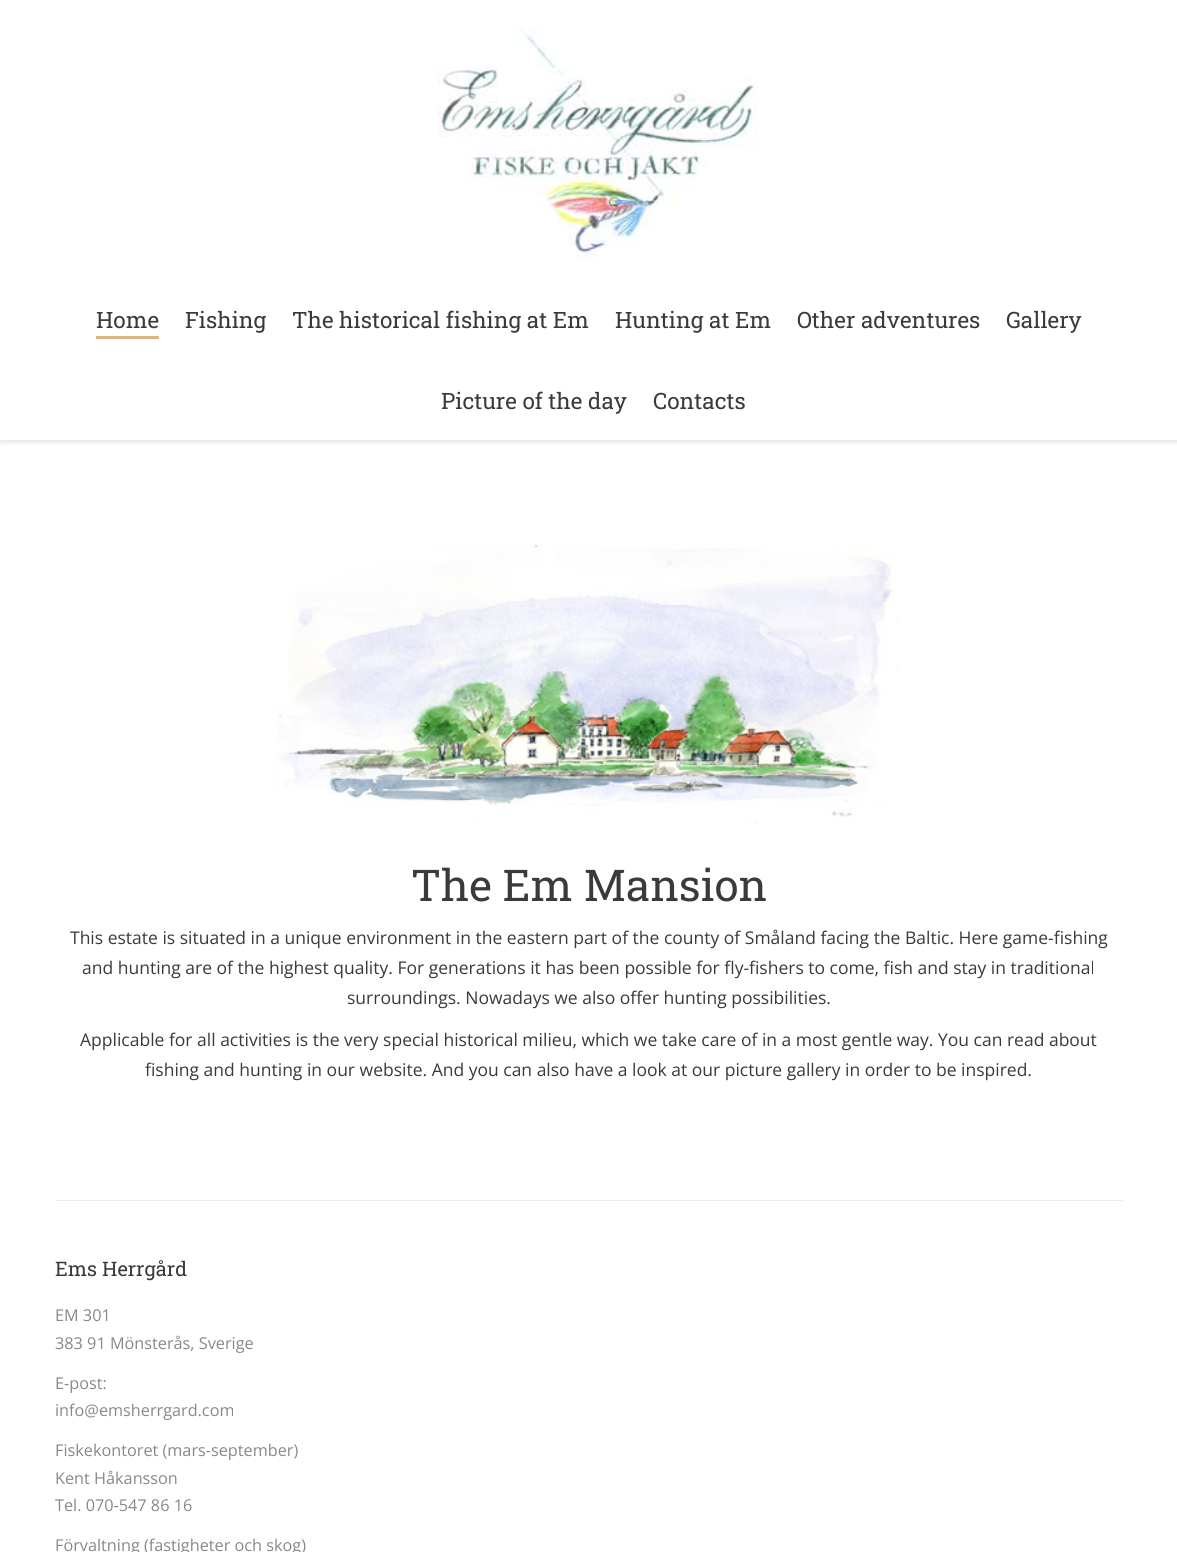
#include <cairo.h>
#include <math.h>
#include <stddef.h>

typedef struct { double x, y; const char *s; } line_t;

static void ink(cairo_t *ctx, unsigned color) {
    cairo_set_source_rgb(ctx, (color >> 16) / 255.0, (color >> 8 & 255) / 255.0, (color & 255) / 255.0);
}

static void round_path(cairo_t *ctx, double x, double y, double w, double h, double r) {
    cairo_new_sub_path(ctx);
    cairo_arc(ctx, x + w - r, y + h - r, r, 0, M_PI / 2);
    cairo_arc(ctx, x + r, y + h - r, r, M_PI / 2, M_PI);
    cairo_arc(ctx, x + r, y + r, r, M_PI, 1.5 * M_PI);
    cairo_arc(ctx, x + w - r, y + r, r, 1.5 * M_PI, 2 * M_PI);
    cairo_close_path(ctx);
}

static void blur_box(cairo_t *ctx, double x, double y, double w, double h, double r, double blur, double alpha) {
    cairo_push_group_with_content(ctx, CAIRO_CONTENT_ALPHA);
    cairo_set_operator(ctx, CAIRO_OPERATOR_SOURCE);
    for (int i = 15; i >= -15 && fmin(w, h) + blur * i / 3 > 0; i -= 2) {
        double e = blur * i / 6;
        cairo_set_source_rgba(ctx, 0, 0, 0, alpha * erfc((i - 1) / 8.5) / 2);
        round_path(ctx, x - e, y - e, w + 2 * e, h + 2 * e, fmax(0, fmin(r + e + blur * .6, fmin(w, h) / 2 + e)));
        cairo_fill(ctx);
    }
    cairo_pattern_t *soft = cairo_pop_group(ctx);
    cairo_mask(ctx, soft);
    cairo_pattern_destroy(soft);
}

static void paste(cairo_t *ctx, const char *path, double x, double y, double w, double h) {
    cairo_surface_t *image = cairo_image_surface_create_from_png(path);
    cairo_save(ctx);
    cairo_set_source_surface(ctx, image, x, y);
    cairo_rectangle(ctx, x, y, w, h);
    cairo_fill(ctx);
    cairo_restore(ctx);
    cairo_surface_destroy(image);
}

int main(void) {
    cairo_surface_t *surface = cairo_image_surface_create(CAIRO_FORMAT_RGB24, 1177, 1552);
    cairo_t *ctx = cairo_create(surface);
    cairo_font_options_t *options = cairo_font_options_create();
    cairo_font_options_set_hint_metrics(options, CAIRO_HINT_METRICS_OFF);
    cairo_font_options_set_hint_style(options, CAIRO_HINT_STYLE_NONE);
    cairo_set_font_options(ctx, options);
    cairo_set_miter_limit(ctx, 4);
    ink(ctx, 0xFFFFFF);
    cairo_paint(ctx);
    cairo_save(ctx);
    cairo_rectangle(ctx, 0, 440, 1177, 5);
    cairo_clip(ctx);
    ink(ctx, 0x000000);
    blur_box(ctx, 0, 0, 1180, 443, 0, 2.5, 0.1);
    cairo_restore(ctx);
    paste(ctx, "media/1.png", 437, 27, 321, 231);
    cairo_select_font_face(ctx, "Roboto Slab", CAIRO_FONT_SLANT_NORMAL, CAIRO_FONT_WEIGHT_NORMAL);
    cairo_set_font_size(ctx, 22.5);
    ink(ctx, 0x3A3A3A);
    cairo_move_to(ctx, 96, 328);
    cairo_show_text(ctx, "Home");
    ink(ctx, 0xDAB685);
    cairo_rectangle(ctx, 96, 336, 63, 3);
    cairo_fill(ctx);
    ink(ctx, 0x3A3A3A);
    {
        static const line_t items[] = {
            {185, 328, "Fishing"},
            {292, 328, "The historical fishing at Em"},
            {615, 328, "Hunting at Em"},
            {797, 328, "Other adventures"},
            {1006, 328, "Gallery"},
            {441, 409, "Picture of the day"},
            {653, 409, "Contacts"},
        };
        for (size_t i = 0; i < sizeof items / sizeof *items; i++) {
            cairo_move_to(ctx, items[i].x, items[i].y);
            cairo_show_text(ctx, items[i].s);
        }
    }
    paste(ctx, "media/2.png", 276, 545, 624, 279);
    cairo_set_font_size(ctx, 43.75);
    cairo_move_to(ctx, 411, 901);
    cairo_show_text(ctx, "The Em Mansion");
    cairo_select_font_face(ctx, "Open Sans", CAIRO_FONT_SLANT_NORMAL, CAIRO_FONT_WEIGHT_NORMAL);
    cairo_set_font_size(ctx, 17.5);
    {
        static const line_t items[] = {
            {70, 944, "This estate is situated in a unique environment in the eastern part of the county of Småland facing the Baltic. Here game-fishing"},
            {82, 974, "and hunting are of the highest quality. For generations it has been possible for fly-fishers to come, fish and stay in traditional"},
            {347, 1004, "surroundings. Nowadays we also offer hunting possibilities."},
            {80, 1046, "Applicable for all activities is the very special historical milieu, which we take care of in a most gentle way. You can read about"},
            {145, 1076, "fishing and hunting in our website. And you can also have a look at our picture gallery in order to be inspired."},
        };
        for (size_t i = 0; i < sizeof items / sizeof *items; i++) {
            cairo_move_to(ctx, items[i].x, items[i].y);
            cairo_show_text(ctx, items[i].s);
        }
    }
    ink(ctx, 0xEDEDED);
    cairo_rectangle(ctx, 55, 1200, 1068, 1);
    cairo_fill(ctx);
    cairo_select_font_face(ctx, "Roboto Slab", CAIRO_FONT_SLANT_NORMAL, CAIRO_FONT_WEIGHT_NORMAL);
    cairo_set_font_size(ctx, 20);
    ink(ctx, 0x3A3A3A);
    cairo_move_to(ctx, 55, 1276);
    cairo_show_text(ctx, "Ems Herrgård");
    cairo_select_font_face(ctx, "Open Sans", CAIRO_FONT_SLANT_NORMAL, CAIRO_FONT_WEIGHT_NORMAL);
    cairo_set_font_size(ctx, 16.25);
    ink(ctx, 0x888888);
    {
        static const line_t items[] = {
            {55, 1321, "EM 301"},
            {55, 1349, "383 91 Mönsterås, Sverige"},
            {55, 1389, "E-post:"},
            {55, 1416, "info@emsherrgard.com"},
            {55, 1456, "Fiskekontoret (mars-september)"},
            {55, 1484, "Kent Håkansson"},
            {55, 1511, "Tel. 070-547 86 16"},
            {55, 1551, "Förvaltning (fastigheter och skog)"},
        };
        for (size_t i = 0; i < sizeof items / sizeof *items; i++) {
            cairo_move_to(ctx, items[i].x, items[i].y);
            cairo_show_text(ctx, items[i].s);
        }
    }
    cairo_surface_write_to_png(surface, "image.png");
    cairo_font_options_destroy(options);
    cairo_destroy(ctx);
    cairo_surface_destroy(surface);
    return 0;
}
